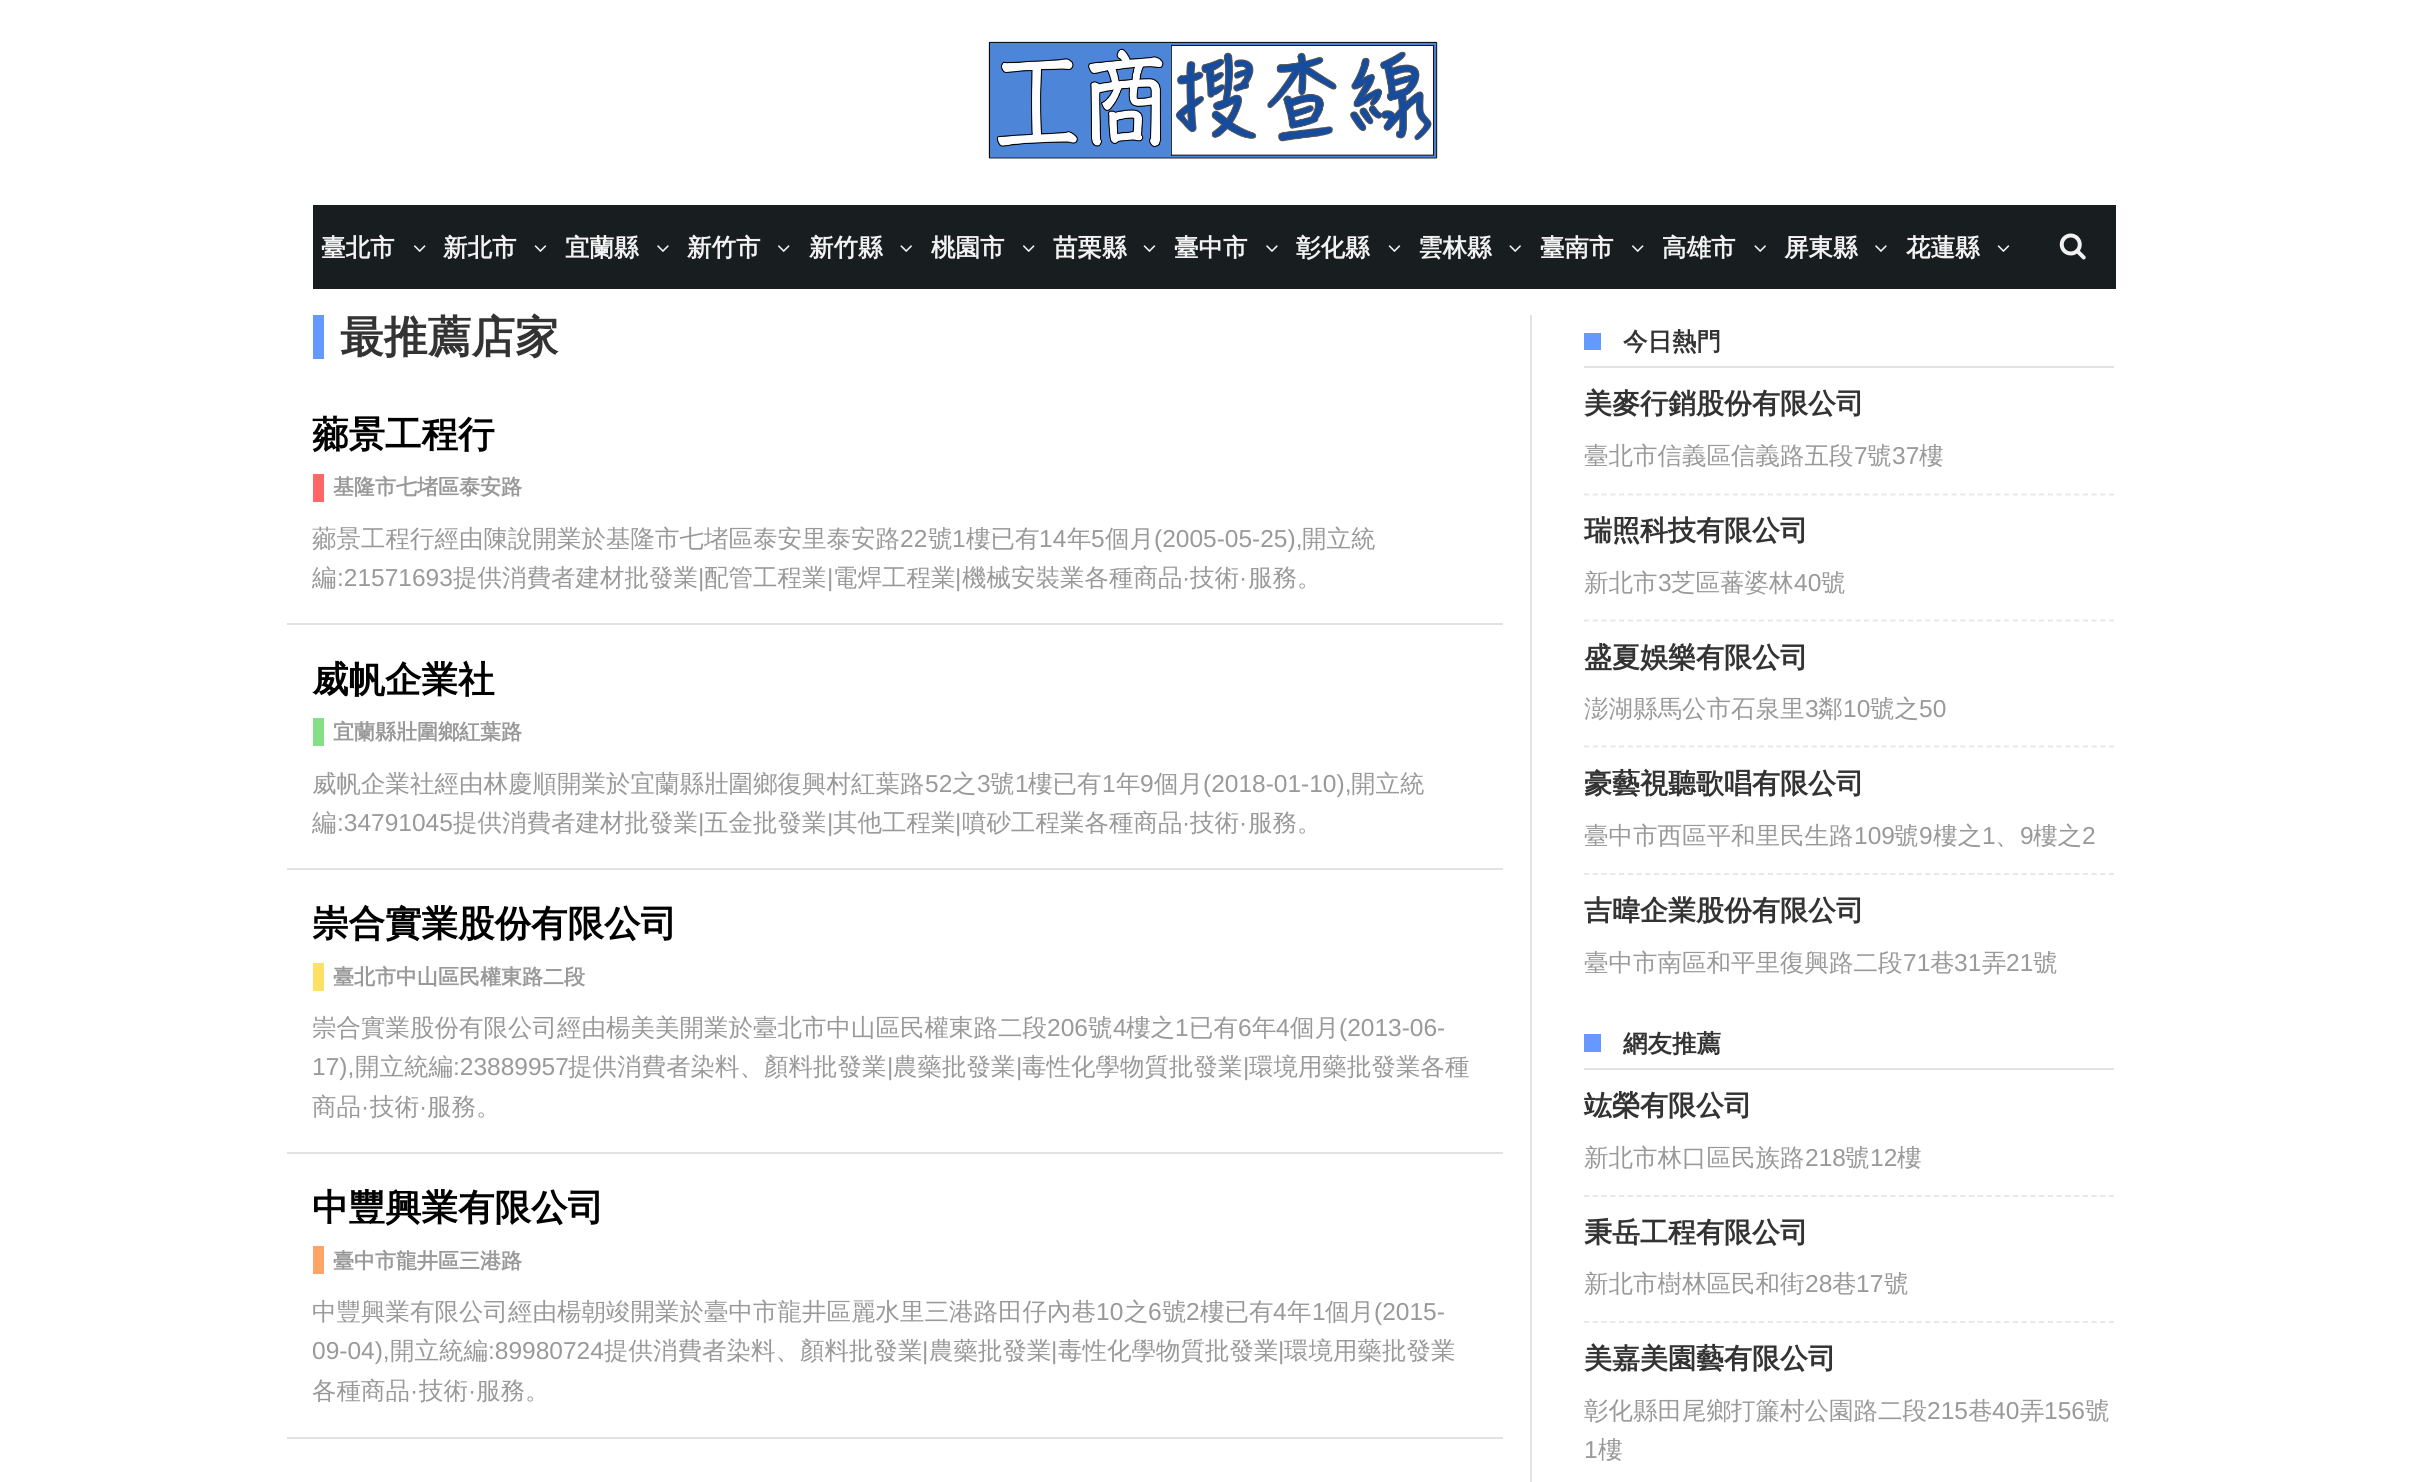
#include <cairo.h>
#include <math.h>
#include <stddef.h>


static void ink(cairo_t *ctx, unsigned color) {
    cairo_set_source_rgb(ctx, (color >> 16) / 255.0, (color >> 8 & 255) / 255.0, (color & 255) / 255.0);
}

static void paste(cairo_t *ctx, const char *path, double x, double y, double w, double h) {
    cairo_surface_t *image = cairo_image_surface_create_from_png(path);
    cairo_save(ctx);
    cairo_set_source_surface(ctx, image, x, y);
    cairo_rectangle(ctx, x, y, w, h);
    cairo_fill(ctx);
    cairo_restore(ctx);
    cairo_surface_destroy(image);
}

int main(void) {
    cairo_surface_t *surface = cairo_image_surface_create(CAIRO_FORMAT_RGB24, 2426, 1482);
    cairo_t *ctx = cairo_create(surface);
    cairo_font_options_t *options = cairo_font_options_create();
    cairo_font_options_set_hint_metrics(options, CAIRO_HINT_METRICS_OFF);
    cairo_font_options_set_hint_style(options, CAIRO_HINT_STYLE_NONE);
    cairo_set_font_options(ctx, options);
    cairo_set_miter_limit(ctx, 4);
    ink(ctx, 0xFFFFFF);
    cairo_paint(ctx);
    paste(ctx, "media/1.png", 988, 41, 450, 118);
    ink(ctx, 0x181D1F);
    cairo_rectangle(ctx, 313, 205, 1803, 84);
    cairo_fill(ctx);
    cairo_select_font_face(ctx, "WenQuanYi Zen Hei", CAIRO_FONT_SLANT_NORMAL, CAIRO_FONT_WEIGHT_BOLD);
    cairo_set_font_size(ctx, 24.5);
    ink(ctx, 0xF2F2F2);
    cairo_move_to(ctx, 321, 256);
    cairo_show_text(ctx, "臺北市");
    paste(ctx, "media/2.png", 413, 245, 13, 7);
    cairo_move_to(ctx, 443, 256);
    cairo_show_text(ctx, "新北市");
    paste(ctx, "media/3.png", 534, 245, 13, 7);
    cairo_move_to(ctx, 565, 256);
    cairo_show_text(ctx, "宜蘭縣");
    paste(ctx, "media/4.png", 657, 245, 12, 7);
    cairo_move_to(ctx, 687, 256);
    cairo_show_text(ctx, "新竹市");
    paste(ctx, "media/2.png", 777, 245, 13, 7);
    cairo_move_to(ctx, 809, 256);
    cairo_show_text(ctx, "新竹縣");
    paste(ctx, "media/5.png", 900, 245, 12, 7);
    cairo_move_to(ctx, 931, 256);
    cairo_show_text(ctx, "桃園市");
    paste(ctx, "media/2.png", 1022, 245, 13, 7);
    cairo_move_to(ctx, 1053, 256);
    cairo_show_text(ctx, "苗栗縣");
    paste(ctx, "media/3.png", 1143, 245, 13, 7);
    cairo_move_to(ctx, 1174, 256);
    cairo_show_text(ctx, "臺中市");
    paste(ctx, "media/4.png", 1266, 245, 12, 7);
    cairo_move_to(ctx, 1296, 256);
    cairo_show_text(ctx, "彰化縣");
    paste(ctx, "media/3.png", 1388, 245, 13, 7);
    cairo_move_to(ctx, 1418, 256);
    cairo_show_text(ctx, "雲林縣");
    paste(ctx, "media/5.png", 1509, 245, 12, 7);
    cairo_move_to(ctx, 1540, 256);
    cairo_show_text(ctx, "臺南市");
    paste(ctx, "media/2.png", 1631, 245, 13, 7);
    cairo_move_to(ctx, 1662, 256);
    cairo_show_text(ctx, "高雄市");
    paste(ctx, "media/5.png", 1754, 245, 12, 7);
    cairo_move_to(ctx, 1784, 256);
    cairo_show_text(ctx, "屏東縣");
    paste(ctx, "media/4.png", 1875, 245, 12, 7);
    cairo_move_to(ctx, 1906, 256);
    cairo_show_text(ctx, "花蓮縣");
    paste(ctx, "media/3.png", 1997, 245, 13, 7);
    paste(ctx, "media/6.png", 2059, 233, 27, 27);
    ink(ctx, 0xE2E2E2);
    cairo_rectangle(ctx, 1530, 315, 2, 1167);
    cairo_fill(ctx);
    ink(ctx, 0x6699FF);
    cairo_rectangle(ctx, 313, 315, 11, 44);
    cairo_fill(ctx);
    cairo_set_font_size(ctx, 43.75);
    ink(ctx, 0x333333);
    cairo_move_to(ctx, 340, 352);
    cairo_show_text(ctx, "最推薦店家");
    ink(ctx, 0xE2E2E2);
    cairo_rectangle(ctx, 287, 623, 1216, 2);
    cairo_fill(ctx);
    cairo_set_font_size(ctx, 36.5);
    ink(ctx, 0x000000);
    cairo_move_to(ctx, 312, 447);
    cairo_show_text(ctx, "薌景工程行");
    ink(ctx, 0xFF6666);
    cairo_rectangle(ctx, 313, 474, 11, 28);
    cairo_fill(ctx);
    cairo_set_font_size(ctx, 21);
    ink(ctx, 0x999999);
    cairo_move_to(ctx, 333, 494);
    cairo_show_text(ctx, "基隆市七堵區泰安路");
    cairo_select_font_face(ctx, "WenQuanYi Zen Hei Medium", CAIRO_FONT_SLANT_NORMAL, CAIRO_FONT_WEIGHT_NORMAL);
    cairo_set_font_size(ctx, 24.5);
    cairo_move_to(ctx, 312, 547);
    cairo_show_text(ctx, "薌景工程行經由陳說開業於基隆市七堵區泰安里泰安路");
    cairo_select_font_face(ctx, "Liberation Sans", CAIRO_FONT_SLANT_NORMAL, CAIRO_FONT_WEIGHT_NORMAL);
    cairo_move_to(ctx, 900, 547);
    cairo_show_text(ctx, "22");
    cairo_select_font_face(ctx, "WenQuanYi Zen Hei Medium", CAIRO_FONT_SLANT_NORMAL, CAIRO_FONT_WEIGHT_NORMAL);
    cairo_move_to(ctx, 928, 547);
    cairo_show_text(ctx, "號");
    cairo_select_font_face(ctx, "Liberation Sans", CAIRO_FONT_SLANT_NORMAL, CAIRO_FONT_WEIGHT_NORMAL);
    cairo_move_to(ctx, 952, 547);
    cairo_show_text(ctx, "1");
    cairo_select_font_face(ctx, "WenQuanYi Zen Hei Medium", CAIRO_FONT_SLANT_NORMAL, CAIRO_FONT_WEIGHT_NORMAL);
    cairo_move_to(ctx, 966, 547);
    cairo_show_text(ctx, "樓已有");
    cairo_select_font_face(ctx, "Liberation Sans", CAIRO_FONT_SLANT_NORMAL, CAIRO_FONT_WEIGHT_NORMAL);
    cairo_move_to(ctx, 1039, 547);
    cairo_show_text(ctx, "14");
    cairo_select_font_face(ctx, "WenQuanYi Zen Hei Medium", CAIRO_FONT_SLANT_NORMAL, CAIRO_FONT_WEIGHT_NORMAL);
    cairo_move_to(ctx, 1067, 547);
    cairo_show_text(ctx, "年");
    cairo_select_font_face(ctx, "Liberation Sans", CAIRO_FONT_SLANT_NORMAL, CAIRO_FONT_WEIGHT_NORMAL);
    cairo_move_to(ctx, 1091, 547);
    cairo_show_text(ctx, "5");
    cairo_select_font_face(ctx, "WenQuanYi Zen Hei Medium", CAIRO_FONT_SLANT_NORMAL, CAIRO_FONT_WEIGHT_NORMAL);
    cairo_move_to(ctx, 1105, 547);
    cairo_show_text(ctx, "個月");
    cairo_select_font_face(ctx, "Liberation Sans", CAIRO_FONT_SLANT_NORMAL, CAIRO_FONT_WEIGHT_NORMAL);
    cairo_move_to(ctx, 1154, 547);
    cairo_show_text(ctx, "(2005-05-25),");
    cairo_select_font_face(ctx, "WenQuanYi Zen Hei Medium", CAIRO_FONT_SLANT_NORMAL, CAIRO_FONT_WEIGHT_NORMAL);
    cairo_move_to(ctx, 1302, 547);
    cairo_show_text(ctx, "開立統");
    cairo_move_to(ctx, 312, 586);
    cairo_show_text(ctx, "編");
    cairo_select_font_face(ctx, "Liberation Sans", CAIRO_FONT_SLANT_NORMAL, CAIRO_FONT_WEIGHT_NORMAL);
    cairo_move_to(ctx, 337, 586);
    cairo_show_text(ctx, ":21571693");
    cairo_select_font_face(ctx, "WenQuanYi Zen Hei Medium", CAIRO_FONT_SLANT_NORMAL, CAIRO_FONT_WEIGHT_NORMAL);
    cairo_move_to(ctx, 453, 586);
    cairo_show_text(ctx, "提供消費者建材批發業");
    cairo_select_font_face(ctx, "Liberation Sans", CAIRO_FONT_SLANT_NORMAL, CAIRO_FONT_WEIGHT_NORMAL);
    cairo_move_to(ctx, 698, 586);
    cairo_show_text(ctx, "|");
    cairo_select_font_face(ctx, "WenQuanYi Zen Hei Medium", CAIRO_FONT_SLANT_NORMAL, CAIRO_FONT_WEIGHT_NORMAL);
    cairo_move_to(ctx, 704, 586);
    cairo_show_text(ctx, "配管工程業");
    cairo_select_font_face(ctx, "Liberation Sans", CAIRO_FONT_SLANT_NORMAL, CAIRO_FONT_WEIGHT_NORMAL);
    cairo_move_to(ctx, 827, 586);
    cairo_show_text(ctx, "|");
    cairo_select_font_face(ctx, "WenQuanYi Zen Hei Medium", CAIRO_FONT_SLANT_NORMAL, CAIRO_FONT_WEIGHT_NORMAL);
    cairo_move_to(ctx, 833, 586);
    cairo_show_text(ctx, "電焊工程業");
    cairo_select_font_face(ctx, "Liberation Sans", CAIRO_FONT_SLANT_NORMAL, CAIRO_FONT_WEIGHT_NORMAL);
    cairo_move_to(ctx, 955, 586);
    cairo_show_text(ctx, "|");
    cairo_select_font_face(ctx, "WenQuanYi Zen Hei Medium", CAIRO_FONT_SLANT_NORMAL, CAIRO_FONT_WEIGHT_NORMAL);
    cairo_move_to(ctx, 962, 586);
    cairo_show_text(ctx, "機械安裝業各種商品");
    cairo_select_font_face(ctx, "Liberation Sans", CAIRO_FONT_SLANT_NORMAL, CAIRO_FONT_WEIGHT_NORMAL);
    cairo_move_to(ctx, 1182, 586);
    cairo_show_text(ctx, "·");
    cairo_select_font_face(ctx, "WenQuanYi Zen Hei Medium", CAIRO_FONT_SLANT_NORMAL, CAIRO_FONT_WEIGHT_NORMAL);
    cairo_move_to(ctx, 1190, 586);
    cairo_show_text(ctx, "技術");
    cairo_select_font_face(ctx, "Liberation Sans", CAIRO_FONT_SLANT_NORMAL, CAIRO_FONT_WEIGHT_NORMAL);
    cairo_move_to(ctx, 1239, 586);
    cairo_show_text(ctx, "·");
    cairo_select_font_face(ctx, "WenQuanYi Zen Hei Medium", CAIRO_FONT_SLANT_NORMAL, CAIRO_FONT_WEIGHT_NORMAL);
    cairo_move_to(ctx, 1248, 586);
    cairo_show_text(ctx, "服務。");
    ink(ctx, 0xE2E2E2);
    cairo_rectangle(ctx, 287, 868, 1216, 2);
    cairo_fill(ctx);
    cairo_select_font_face(ctx, "WenQuanYi Zen Hei", CAIRO_FONT_SLANT_NORMAL, CAIRO_FONT_WEIGHT_BOLD);
    cairo_set_font_size(ctx, 36.5);
    ink(ctx, 0x000000);
    cairo_move_to(ctx, 312, 692);
    cairo_show_text(ctx, "威帆企業社");
    ink(ctx, 0x85E085);
    cairo_rectangle(ctx, 313, 718, 11, 28);
    cairo_fill(ctx);
    cairo_set_font_size(ctx, 21);
    ink(ctx, 0x999999);
    cairo_move_to(ctx, 333, 739);
    cairo_show_text(ctx, "宜蘭縣壯圍鄉紅葉路");
    cairo_select_font_face(ctx, "WenQuanYi Zen Hei Medium", CAIRO_FONT_SLANT_NORMAL, CAIRO_FONT_WEIGHT_NORMAL);
    cairo_set_font_size(ctx, 24.5);
    cairo_move_to(ctx, 312, 792);
    cairo_show_text(ctx, "威帆企業社經由林慶順開業於宜蘭縣壯圍鄉復興村紅葉路");
    cairo_select_font_face(ctx, "Liberation Sans", CAIRO_FONT_SLANT_NORMAL, CAIRO_FONT_WEIGHT_NORMAL);
    cairo_move_to(ctx, 925, 792);
    cairo_show_text(ctx, "52");
    cairo_select_font_face(ctx, "WenQuanYi Zen Hei Medium", CAIRO_FONT_SLANT_NORMAL, CAIRO_FONT_WEIGHT_NORMAL);
    cairo_move_to(ctx, 952, 792);
    cairo_show_text(ctx, "之");
    cairo_select_font_face(ctx, "Liberation Sans", CAIRO_FONT_SLANT_NORMAL, CAIRO_FONT_WEIGHT_NORMAL);
    cairo_move_to(ctx, 977, 792);
    cairo_show_text(ctx, "3");
    cairo_select_font_face(ctx, "WenQuanYi Zen Hei Medium", CAIRO_FONT_SLANT_NORMAL, CAIRO_FONT_WEIGHT_NORMAL);
    cairo_move_to(ctx, 990, 792);
    cairo_show_text(ctx, "號");
    cairo_select_font_face(ctx, "Liberation Sans", CAIRO_FONT_SLANT_NORMAL, CAIRO_FONT_WEIGHT_NORMAL);
    cairo_move_to(ctx, 1015, 792);
    cairo_show_text(ctx, "1");
    cairo_select_font_face(ctx, "WenQuanYi Zen Hei Medium", CAIRO_FONT_SLANT_NORMAL, CAIRO_FONT_WEIGHT_NORMAL);
    cairo_move_to(ctx, 1028, 792);
    cairo_show_text(ctx, "樓已有");
    cairo_select_font_face(ctx, "Liberation Sans", CAIRO_FONT_SLANT_NORMAL, CAIRO_FONT_WEIGHT_NORMAL);
    cairo_move_to(ctx, 1102, 792);
    cairo_show_text(ctx, "1");
    cairo_select_font_face(ctx, "WenQuanYi Zen Hei Medium", CAIRO_FONT_SLANT_NORMAL, CAIRO_FONT_WEIGHT_NORMAL);
    cairo_move_to(ctx, 1116, 792);
    cairo_show_text(ctx, "年");
    cairo_select_font_face(ctx, "Liberation Sans", CAIRO_FONT_SLANT_NORMAL, CAIRO_FONT_WEIGHT_NORMAL);
    cairo_move_to(ctx, 1140, 792);
    cairo_show_text(ctx, "9");
    cairo_select_font_face(ctx, "WenQuanYi Zen Hei Medium", CAIRO_FONT_SLANT_NORMAL, CAIRO_FONT_WEIGHT_NORMAL);
    cairo_move_to(ctx, 1154, 792);
    cairo_show_text(ctx, "個月");
    cairo_select_font_face(ctx, "Liberation Sans", CAIRO_FONT_SLANT_NORMAL, CAIRO_FONT_WEIGHT_NORMAL);
    cairo_move_to(ctx, 1203, 792);
    cairo_show_text(ctx, "(2018-01-10),");
    cairo_select_font_face(ctx, "WenQuanYi Zen Hei Medium", CAIRO_FONT_SLANT_NORMAL, CAIRO_FONT_WEIGHT_NORMAL);
    cairo_move_to(ctx, 1351, 792);
    cairo_show_text(ctx, "開立統");
    cairo_move_to(ctx, 312, 831);
    cairo_show_text(ctx, "編");
    cairo_select_font_face(ctx, "Liberation Sans", CAIRO_FONT_SLANT_NORMAL, CAIRO_FONT_WEIGHT_NORMAL);
    cairo_move_to(ctx, 337, 831);
    cairo_show_text(ctx, ":34791045");
    cairo_select_font_face(ctx, "WenQuanYi Zen Hei Medium", CAIRO_FONT_SLANT_NORMAL, CAIRO_FONT_WEIGHT_NORMAL);
    cairo_move_to(ctx, 453, 831);
    cairo_show_text(ctx, "提供消費者建材批發業");
    cairo_select_font_face(ctx, "Liberation Sans", CAIRO_FONT_SLANT_NORMAL, CAIRO_FONT_WEIGHT_NORMAL);
    cairo_move_to(ctx, 698, 831);
    cairo_show_text(ctx, "|");
    cairo_select_font_face(ctx, "WenQuanYi Zen Hei Medium", CAIRO_FONT_SLANT_NORMAL, CAIRO_FONT_WEIGHT_NORMAL);
    cairo_move_to(ctx, 704, 831);
    cairo_show_text(ctx, "五金批發業");
    cairo_select_font_face(ctx, "Liberation Sans", CAIRO_FONT_SLANT_NORMAL, CAIRO_FONT_WEIGHT_NORMAL);
    cairo_move_to(ctx, 827, 831);
    cairo_show_text(ctx, "|");
    cairo_select_font_face(ctx, "WenQuanYi Zen Hei Medium", CAIRO_FONT_SLANT_NORMAL, CAIRO_FONT_WEIGHT_NORMAL);
    cairo_move_to(ctx, 833, 831);
    cairo_show_text(ctx, "其他工程業");
    cairo_select_font_face(ctx, "Liberation Sans", CAIRO_FONT_SLANT_NORMAL, CAIRO_FONT_WEIGHT_NORMAL);
    cairo_move_to(ctx, 955, 831);
    cairo_show_text(ctx, "|");
    cairo_select_font_face(ctx, "WenQuanYi Zen Hei Medium", CAIRO_FONT_SLANT_NORMAL, CAIRO_FONT_WEIGHT_NORMAL);
    cairo_move_to(ctx, 962, 831);
    cairo_show_text(ctx, "噴砂工程業各種商品");
    cairo_select_font_face(ctx, "Liberation Sans", CAIRO_FONT_SLANT_NORMAL, CAIRO_FONT_WEIGHT_NORMAL);
    cairo_move_to(ctx, 1182, 831);
    cairo_show_text(ctx, "·");
    cairo_select_font_face(ctx, "WenQuanYi Zen Hei Medium", CAIRO_FONT_SLANT_NORMAL, CAIRO_FONT_WEIGHT_NORMAL);
    cairo_move_to(ctx, 1190, 831);
    cairo_show_text(ctx, "技術");
    cairo_select_font_face(ctx, "Liberation Sans", CAIRO_FONT_SLANT_NORMAL, CAIRO_FONT_WEIGHT_NORMAL);
    cairo_move_to(ctx, 1239, 831);
    cairo_show_text(ctx, "·");
    cairo_select_font_face(ctx, "WenQuanYi Zen Hei Medium", CAIRO_FONT_SLANT_NORMAL, CAIRO_FONT_WEIGHT_NORMAL);
    cairo_move_to(ctx, 1248, 831);
    cairo_show_text(ctx, "服務。");
    ink(ctx, 0xE2E2E2);
    cairo_rectangle(ctx, 287, 1152, 1216, 2);
    cairo_fill(ctx);
    cairo_select_font_face(ctx, "WenQuanYi Zen Hei", CAIRO_FONT_SLANT_NORMAL, CAIRO_FONT_WEIGHT_BOLD);
    cairo_set_font_size(ctx, 36.5);
    ink(ctx, 0x000000);
    cairo_move_to(ctx, 312, 936);
    cairo_show_text(ctx, "崇合實業股份有限公司");
    ink(ctx, 0xFFE066);
    cairo_rectangle(ctx, 313, 963, 11, 28);
    cairo_fill(ctx);
    cairo_set_font_size(ctx, 21);
    ink(ctx, 0x999999);
    cairo_move_to(ctx, 333, 984);
    cairo_show_text(ctx, "臺北市中山區民權東路二段");
    cairo_select_font_face(ctx, "WenQuanYi Zen Hei Medium", CAIRO_FONT_SLANT_NORMAL, CAIRO_FONT_WEIGHT_NORMAL);
    cairo_set_font_size(ctx, 24.5);
    cairo_move_to(ctx, 312, 1036);
    cairo_show_text(ctx, "崇合實業股份有限公司經由楊美美開業於臺北市中山區民權東路二段");
    cairo_select_font_face(ctx, "Liberation Sans", CAIRO_FONT_SLANT_NORMAL, CAIRO_FONT_WEIGHT_NORMAL);
    cairo_move_to(ctx, 1047, 1036);
    cairo_show_text(ctx, "206");
    cairo_select_font_face(ctx, "WenQuanYi Zen Hei Medium", CAIRO_FONT_SLANT_NORMAL, CAIRO_FONT_WEIGHT_NORMAL);
    cairo_move_to(ctx, 1088, 1036);
    cairo_show_text(ctx, "號");
    cairo_select_font_face(ctx, "Liberation Sans", CAIRO_FONT_SLANT_NORMAL, CAIRO_FONT_WEIGHT_NORMAL);
    cairo_move_to(ctx, 1113, 1036);
    cairo_show_text(ctx, "4");
    cairo_select_font_face(ctx, "WenQuanYi Zen Hei Medium", CAIRO_FONT_SLANT_NORMAL, CAIRO_FONT_WEIGHT_NORMAL);
    cairo_move_to(ctx, 1126, 1036);
    cairo_show_text(ctx, "樓之");
    cairo_select_font_face(ctx, "Liberation Sans", CAIRO_FONT_SLANT_NORMAL, CAIRO_FONT_WEIGHT_NORMAL);
    cairo_move_to(ctx, 1175, 1036);
    cairo_show_text(ctx, "1");
    cairo_select_font_face(ctx, "WenQuanYi Zen Hei Medium", CAIRO_FONT_SLANT_NORMAL, CAIRO_FONT_WEIGHT_NORMAL);
    cairo_move_to(ctx, 1189, 1036);
    cairo_show_text(ctx, "已有");
    cairo_select_font_face(ctx, "Liberation Sans", CAIRO_FONT_SLANT_NORMAL, CAIRO_FONT_WEIGHT_NORMAL);
    cairo_move_to(ctx, 1238, 1036);
    cairo_show_text(ctx, "6");
    cairo_select_font_face(ctx, "WenQuanYi Zen Hei Medium", CAIRO_FONT_SLANT_NORMAL, CAIRO_FONT_WEIGHT_NORMAL);
    cairo_move_to(ctx, 1252, 1036);
    cairo_show_text(ctx, "年");
    cairo_select_font_face(ctx, "Liberation Sans", CAIRO_FONT_SLANT_NORMAL, CAIRO_FONT_WEIGHT_NORMAL);
    cairo_move_to(ctx, 1276, 1036);
    cairo_show_text(ctx, "4");
    cairo_select_font_face(ctx, "WenQuanYi Zen Hei Medium", CAIRO_FONT_SLANT_NORMAL, CAIRO_FONT_WEIGHT_NORMAL);
    cairo_move_to(ctx, 1290, 1036);
    cairo_show_text(ctx, "個月");
    cairo_select_font_face(ctx, "Liberation Sans", CAIRO_FONT_SLANT_NORMAL, CAIRO_FONT_WEIGHT_NORMAL);
    cairo_move_to(ctx, 1339, 1036);
    cairo_show_text(ctx, "(2013-06-");
    cairo_move_to(ctx, 312, 1075);
    cairo_show_text(ctx, "17),");
    cairo_select_font_face(ctx, "WenQuanYi Zen Hei Medium", CAIRO_FONT_SLANT_NORMAL, CAIRO_FONT_WEIGHT_NORMAL);
    cairo_move_to(ctx, 355, 1075);
    cairo_show_text(ctx, "開立統編");
    cairo_select_font_face(ctx, "Liberation Sans", CAIRO_FONT_SLANT_NORMAL, CAIRO_FONT_WEIGHT_NORMAL);
    cairo_move_to(ctx, 453, 1075);
    cairo_show_text(ctx, ":23889957");
    cairo_select_font_face(ctx, "WenQuanYi Zen Hei Medium", CAIRO_FONT_SLANT_NORMAL, CAIRO_FONT_WEIGHT_NORMAL);
    cairo_move_to(ctx, 568, 1075);
    cairo_show_text(ctx, "提供消費者染料、顏料批發業");
    cairo_select_font_face(ctx, "Liberation Sans", CAIRO_FONT_SLANT_NORMAL, CAIRO_FONT_WEIGHT_NORMAL);
    cairo_move_to(ctx, 887, 1075);
    cairo_show_text(ctx, "|");
    cairo_select_font_face(ctx, "WenQuanYi Zen Hei Medium", CAIRO_FONT_SLANT_NORMAL, CAIRO_FONT_WEIGHT_NORMAL);
    cairo_move_to(ctx, 893, 1075);
    cairo_show_text(ctx, "農藥批發業");
    cairo_select_font_face(ctx, "Liberation Sans", CAIRO_FONT_SLANT_NORMAL, CAIRO_FONT_WEIGHT_NORMAL);
    cairo_move_to(ctx, 1016, 1075);
    cairo_show_text(ctx, "|");
    cairo_select_font_face(ctx, "WenQuanYi Zen Hei Medium", CAIRO_FONT_SLANT_NORMAL, CAIRO_FONT_WEIGHT_NORMAL);
    cairo_move_to(ctx, 1022, 1075);
    cairo_show_text(ctx, "毒性化學物質批發業");
    cairo_select_font_face(ctx, "Liberation Sans", CAIRO_FONT_SLANT_NORMAL, CAIRO_FONT_WEIGHT_NORMAL);
    cairo_move_to(ctx, 1243, 1075);
    cairo_show_text(ctx, "|");
    cairo_select_font_face(ctx, "WenQuanYi Zen Hei Medium", CAIRO_FONT_SLANT_NORMAL, CAIRO_FONT_WEIGHT_NORMAL);
    cairo_move_to(ctx, 1249, 1075);
    cairo_show_text(ctx, "環境用藥批發業各種");
    cairo_move_to(ctx, 312, 1115);
    cairo_show_text(ctx, "商品");
    cairo_select_font_face(ctx, "Liberation Sans", CAIRO_FONT_SLANT_NORMAL, CAIRO_FONT_WEIGHT_NORMAL);
    cairo_move_to(ctx, 361, 1115);
    cairo_show_text(ctx, "·");
    cairo_select_font_face(ctx, "WenQuanYi Zen Hei Medium", CAIRO_FONT_SLANT_NORMAL, CAIRO_FONT_WEIGHT_NORMAL);
    cairo_move_to(ctx, 370, 1115);
    cairo_show_text(ctx, "技術");
    cairo_select_font_face(ctx, "Liberation Sans", CAIRO_FONT_SLANT_NORMAL, CAIRO_FONT_WEIGHT_NORMAL);
    cairo_move_to(ctx, 419, 1115);
    cairo_show_text(ctx, "·");
    cairo_select_font_face(ctx, "WenQuanYi Zen Hei Medium", CAIRO_FONT_SLANT_NORMAL, CAIRO_FONT_WEIGHT_NORMAL);
    cairo_move_to(ctx, 427, 1115);
    cairo_show_text(ctx, "服務。");
    ink(ctx, 0xE2E2E2);
    cairo_rectangle(ctx, 287, 1437, 1216, 2);
    cairo_fill(ctx);
    cairo_select_font_face(ctx, "WenQuanYi Zen Hei", CAIRO_FONT_SLANT_NORMAL, CAIRO_FONT_WEIGHT_BOLD);
    cairo_set_font_size(ctx, 36.5);
    ink(ctx, 0x000000);
    cairo_move_to(ctx, 312, 1220);
    cairo_show_text(ctx, "中豐興業有限公司");
    ink(ctx, 0xFFA366);
    cairo_rectangle(ctx, 313, 1246, 11, 28);
    cairo_fill(ctx);
    cairo_set_font_size(ctx, 21);
    ink(ctx, 0x999999);
    cairo_move_to(ctx, 333, 1268);
    cairo_show_text(ctx, "臺中市龍井區三港路");
    cairo_select_font_face(ctx, "WenQuanYi Zen Hei Medium", CAIRO_FONT_SLANT_NORMAL, CAIRO_FONT_WEIGHT_NORMAL);
    cairo_set_font_size(ctx, 24.5);
    cairo_move_to(ctx, 312, 1320);
    cairo_show_text(ctx, "中豐興業有限公司經由楊朝竣開業於臺中市龍井區麗水里三港路田仔內巷");
    cairo_select_font_face(ctx, "Liberation Sans", CAIRO_FONT_SLANT_NORMAL, CAIRO_FONT_WEIGHT_NORMAL);
    cairo_move_to(ctx, 1096, 1320);
    cairo_show_text(ctx, "10");
    cairo_select_font_face(ctx, "WenQuanYi Zen Hei Medium", CAIRO_FONT_SLANT_NORMAL, CAIRO_FONT_WEIGHT_NORMAL);
    cairo_move_to(ctx, 1124, 1320);
    cairo_show_text(ctx, "之");
    cairo_select_font_face(ctx, "Liberation Sans", CAIRO_FONT_SLANT_NORMAL, CAIRO_FONT_WEIGHT_NORMAL);
    cairo_move_to(ctx, 1148, 1320);
    cairo_show_text(ctx, "6");
    cairo_select_font_face(ctx, "WenQuanYi Zen Hei Medium", CAIRO_FONT_SLANT_NORMAL, CAIRO_FONT_WEIGHT_NORMAL);
    cairo_move_to(ctx, 1162, 1320);
    cairo_show_text(ctx, "號");
    cairo_select_font_face(ctx, "Liberation Sans", CAIRO_FONT_SLANT_NORMAL, CAIRO_FONT_WEIGHT_NORMAL);
    cairo_move_to(ctx, 1186, 1320);
    cairo_show_text(ctx, "2");
    cairo_select_font_face(ctx, "WenQuanYi Zen Hei Medium", CAIRO_FONT_SLANT_NORMAL, CAIRO_FONT_WEIGHT_NORMAL);
    cairo_move_to(ctx, 1200, 1320);
    cairo_show_text(ctx, "樓已有");
    cairo_select_font_face(ctx, "Liberation Sans", CAIRO_FONT_SLANT_NORMAL, CAIRO_FONT_WEIGHT_NORMAL);
    cairo_move_to(ctx, 1273, 1320);
    cairo_show_text(ctx, "4");
    cairo_select_font_face(ctx, "WenQuanYi Zen Hei Medium", CAIRO_FONT_SLANT_NORMAL, CAIRO_FONT_WEIGHT_NORMAL);
    cairo_move_to(ctx, 1287, 1320);
    cairo_show_text(ctx, "年");
    cairo_select_font_face(ctx, "Liberation Sans", CAIRO_FONT_SLANT_NORMAL, CAIRO_FONT_WEIGHT_NORMAL);
    cairo_move_to(ctx, 1312, 1320);
    cairo_show_text(ctx, "1");
    cairo_select_font_face(ctx, "WenQuanYi Zen Hei Medium", CAIRO_FONT_SLANT_NORMAL, CAIRO_FONT_WEIGHT_NORMAL);
    cairo_move_to(ctx, 1325, 1320);
    cairo_show_text(ctx, "個月");
    cairo_select_font_face(ctx, "Liberation Sans", CAIRO_FONT_SLANT_NORMAL, CAIRO_FONT_WEIGHT_NORMAL);
    cairo_move_to(ctx, 1374, 1320);
    cairo_show_text(ctx, "(2015-");
    cairo_move_to(ctx, 312, 1359);
    cairo_show_text(ctx, "09-04),");
    cairo_select_font_face(ctx, "WenQuanYi Zen Hei Medium", CAIRO_FONT_SLANT_NORMAL, CAIRO_FONT_WEIGHT_NORMAL);
    cairo_move_to(ctx, 390, 1359);
    cairo_show_text(ctx, "開立統編");
    cairo_select_font_face(ctx, "Liberation Sans", CAIRO_FONT_SLANT_NORMAL, CAIRO_FONT_WEIGHT_NORMAL);
    cairo_move_to(ctx, 488, 1359);
    cairo_show_text(ctx, ":89980724");
    cairo_select_font_face(ctx, "WenQuanYi Zen Hei Medium", CAIRO_FONT_SLANT_NORMAL, CAIRO_FONT_WEIGHT_NORMAL);
    cairo_move_to(ctx, 604, 1359);
    cairo_show_text(ctx, "提供消費者染料、顏料批發業");
    cairo_select_font_face(ctx, "Liberation Sans", CAIRO_FONT_SLANT_NORMAL, CAIRO_FONT_WEIGHT_NORMAL);
    cairo_move_to(ctx, 922, 1359);
    cairo_show_text(ctx, "|");
    cairo_select_font_face(ctx, "WenQuanYi Zen Hei Medium", CAIRO_FONT_SLANT_NORMAL, CAIRO_FONT_WEIGHT_NORMAL);
    cairo_move_to(ctx, 929, 1359);
    cairo_show_text(ctx, "農藥批發業");
    cairo_select_font_face(ctx, "Liberation Sans", CAIRO_FONT_SLANT_NORMAL, CAIRO_FONT_WEIGHT_NORMAL);
    cairo_move_to(ctx, 1051, 1359);
    cairo_show_text(ctx, "|");
    cairo_select_font_face(ctx, "WenQuanYi Zen Hei Medium", CAIRO_FONT_SLANT_NORMAL, CAIRO_FONT_WEIGHT_NORMAL);
    cairo_move_to(ctx, 1058, 1359);
    cairo_show_text(ctx, "毒性化學物質批發業");
    cairo_select_font_face(ctx, "Liberation Sans", CAIRO_FONT_SLANT_NORMAL, CAIRO_FONT_WEIGHT_NORMAL);
    cairo_move_to(ctx, 1278, 1359);
    cairo_show_text(ctx, "|");
    cairo_select_font_face(ctx, "WenQuanYi Zen Hei Medium", CAIRO_FONT_SLANT_NORMAL, CAIRO_FONT_WEIGHT_NORMAL);
    cairo_move_to(ctx, 1284, 1359);
    cairo_show_text(ctx, "環境用藥批發業");
    cairo_move_to(ctx, 312, 1399);
    cairo_show_text(ctx, "各種商品");
    cairo_select_font_face(ctx, "Liberation Sans", CAIRO_FONT_SLANT_NORMAL, CAIRO_FONT_WEIGHT_NORMAL);
    cairo_move_to(ctx, 410, 1399);
    cairo_show_text(ctx, "·");
    cairo_select_font_face(ctx, "WenQuanYi Zen Hei Medium", CAIRO_FONT_SLANT_NORMAL, CAIRO_FONT_WEIGHT_NORMAL);
    cairo_move_to(ctx, 419, 1399);
    cairo_show_text(ctx, "技術");
    cairo_select_font_face(ctx, "Liberation Sans", CAIRO_FONT_SLANT_NORMAL, CAIRO_FONT_WEIGHT_NORMAL);
    cairo_move_to(ctx, 468, 1399);
    cairo_show_text(ctx, "·");
    cairo_select_font_face(ctx, "WenQuanYi Zen Hei Medium", CAIRO_FONT_SLANT_NORMAL, CAIRO_FONT_WEIGHT_NORMAL);
    cairo_move_to(ctx, 476, 1399);
    cairo_show_text(ctx, "服務。");
    ink(ctx, 0xE2E2E2);
    cairo_rectangle(ctx, 1584, 366, 530, 2);
    cairo_fill(ctx);
    ink(ctx, 0x6699FF);
    cairo_rectangle(ctx, 1584, 333, 17, 17);
    cairo_fill(ctx);
    cairo_select_font_face(ctx, "WenQuanYi Zen Hei", CAIRO_FONT_SLANT_NORMAL, CAIRO_FONT_WEIGHT_BOLD);
    ink(ctx, 0x333333);
    cairo_move_to(ctx, 1623, 350);
    cairo_show_text(ctx, "今日熱門");
    cairo_new_path(ctx);
    cairo_move_to(ctx, 1584, 494.5);
    cairo_line_to(ctx, 2114, 494.5);
    ink(ctx, 0xE6E6E6);
    cairo_set_line_width(ctx, 1.8);
    cairo_set_dash(ctx, (double[]){5.25, 3.5}, 2, 0);
    cairo_stroke(ctx);
    cairo_set_font_size(ctx, 28);
    ink(ctx, 0x333333);
    cairo_move_to(ctx, 1584, 413);
    cairo_show_text(ctx, "美麥行銷股份有限公司");
    cairo_select_font_face(ctx, "WenQuanYi Zen Hei Medium", CAIRO_FONT_SLANT_NORMAL, CAIRO_FONT_WEIGHT_NORMAL);
    cairo_set_font_size(ctx, 24.5);
    ink(ctx, 0x999999);
    cairo_move_to(ctx, 1584, 464);
    cairo_show_text(ctx, "臺北市信義區信義路五段");
    cairo_select_font_face(ctx, "Liberation Sans", CAIRO_FONT_SLANT_NORMAL, CAIRO_FONT_WEIGHT_NORMAL);
    cairo_move_to(ctx, 1854, 464);
    cairo_show_text(ctx, "7");
    cairo_select_font_face(ctx, "WenQuanYi Zen Hei Medium", CAIRO_FONT_SLANT_NORMAL, CAIRO_FONT_WEIGHT_NORMAL);
    cairo_move_to(ctx, 1867, 464);
    cairo_show_text(ctx, "號");
    cairo_select_font_face(ctx, "Liberation Sans", CAIRO_FONT_SLANT_NORMAL, CAIRO_FONT_WEIGHT_NORMAL);
    cairo_move_to(ctx, 1892, 464);
    cairo_show_text(ctx, "37");
    cairo_select_font_face(ctx, "WenQuanYi Zen Hei Medium", CAIRO_FONT_SLANT_NORMAL, CAIRO_FONT_WEIGHT_NORMAL);
    cairo_move_to(ctx, 1919, 464);
    cairo_show_text(ctx, "樓");
    cairo_new_path(ctx);
    cairo_move_to(ctx, 1584, 620.5);
    cairo_line_to(ctx, 2114, 620.5);
    ink(ctx, 0xE6E6E6);
    cairo_stroke(ctx);
    cairo_select_font_face(ctx, "WenQuanYi Zen Hei", CAIRO_FONT_SLANT_NORMAL, CAIRO_FONT_WEIGHT_BOLD);
    cairo_set_font_size(ctx, 28);
    ink(ctx, 0x333333);
    cairo_move_to(ctx, 1584, 540);
    cairo_show_text(ctx, "瑞照科技有限公司");
    cairo_select_font_face(ctx, "WenQuanYi Zen Hei Medium", CAIRO_FONT_SLANT_NORMAL, CAIRO_FONT_WEIGHT_NORMAL);
    cairo_set_font_size(ctx, 24.5);
    ink(ctx, 0x999999);
    cairo_move_to(ctx, 1584, 591);
    cairo_show_text(ctx, "新北市");
    cairo_select_font_face(ctx, "Liberation Sans", CAIRO_FONT_SLANT_NORMAL, CAIRO_FONT_WEIGHT_NORMAL);
    cairo_move_to(ctx, 1658, 591);
    cairo_show_text(ctx, "3");
    cairo_select_font_face(ctx, "WenQuanYi Zen Hei Medium", CAIRO_FONT_SLANT_NORMAL, CAIRO_FONT_WEIGHT_NORMAL);
    cairo_move_to(ctx, 1671, 591);
    cairo_show_text(ctx, "芝區蕃婆林");
    cairo_select_font_face(ctx, "Liberation Sans", CAIRO_FONT_SLANT_NORMAL, CAIRO_FONT_WEIGHT_NORMAL);
    cairo_move_to(ctx, 1794, 591);
    cairo_show_text(ctx, "40");
    cairo_select_font_face(ctx, "WenQuanYi Zen Hei Medium", CAIRO_FONT_SLANT_NORMAL, CAIRO_FONT_WEIGHT_NORMAL);
    cairo_move_to(ctx, 1821, 591);
    cairo_show_text(ctx, "號");
    cairo_new_path(ctx);
    cairo_move_to(ctx, 1584, 746.5);
    cairo_line_to(ctx, 2114, 746.5);
    ink(ctx, 0xE6E6E6);
    cairo_stroke(ctx);
    cairo_select_font_face(ctx, "WenQuanYi Zen Hei", CAIRO_FONT_SLANT_NORMAL, CAIRO_FONT_WEIGHT_BOLD);
    cairo_set_font_size(ctx, 28);
    ink(ctx, 0x333333);
    cairo_move_to(ctx, 1584, 667);
    cairo_show_text(ctx, "盛夏娛樂有限公司");
    cairo_select_font_face(ctx, "WenQuanYi Zen Hei Medium", CAIRO_FONT_SLANT_NORMAL, CAIRO_FONT_WEIGHT_NORMAL);
    cairo_set_font_size(ctx, 24.5);
    ink(ctx, 0x999999);
    cairo_move_to(ctx, 1584, 717);
    cairo_show_text(ctx, "澎湖縣馬公市石泉里");
    cairo_select_font_face(ctx, "Liberation Sans", CAIRO_FONT_SLANT_NORMAL, CAIRO_FONT_WEIGHT_NORMAL);
    cairo_move_to(ctx, 1805, 717);
    cairo_show_text(ctx, "3");
    cairo_select_font_face(ctx, "WenQuanYi Zen Hei Medium", CAIRO_FONT_SLANT_NORMAL, CAIRO_FONT_WEIGHT_NORMAL);
    cairo_move_to(ctx, 1818, 717);
    cairo_show_text(ctx, "鄰");
    cairo_select_font_face(ctx, "Liberation Sans", CAIRO_FONT_SLANT_NORMAL, CAIRO_FONT_WEIGHT_NORMAL);
    cairo_move_to(ctx, 1843, 717);
    cairo_show_text(ctx, "10");
    cairo_select_font_face(ctx, "WenQuanYi Zen Hei Medium", CAIRO_FONT_SLANT_NORMAL, CAIRO_FONT_WEIGHT_NORMAL);
    cairo_move_to(ctx, 1870, 717);
    cairo_show_text(ctx, "號之");
    cairo_select_font_face(ctx, "Liberation Sans", CAIRO_FONT_SLANT_NORMAL, CAIRO_FONT_WEIGHT_NORMAL);
    cairo_move_to(ctx, 1919, 717);
    cairo_show_text(ctx, "50");
    cairo_new_path(ctx);
    cairo_move_to(ctx, 1584, 874);
    cairo_line_to(ctx, 2114, 874);
    ink(ctx, 0xE6E6E6);
    cairo_stroke(ctx);
    cairo_select_font_face(ctx, "WenQuanYi Zen Hei", CAIRO_FONT_SLANT_NORMAL, CAIRO_FONT_WEIGHT_BOLD);
    cairo_set_font_size(ctx, 28);
    ink(ctx, 0x333333);
    cairo_move_to(ctx, 1584, 793);
    cairo_show_text(ctx, "豪藝視聽歌唱有限公司");
    cairo_select_font_face(ctx, "WenQuanYi Zen Hei Medium", CAIRO_FONT_SLANT_NORMAL, CAIRO_FONT_WEIGHT_NORMAL);
    cairo_set_font_size(ctx, 24.5);
    ink(ctx, 0x999999);
    cairo_move_to(ctx, 1584, 844);
    cairo_show_text(ctx, "臺中市西區平和里民生路");
    cairo_select_font_face(ctx, "Liberation Sans", CAIRO_FONT_SLANT_NORMAL, CAIRO_FONT_WEIGHT_NORMAL);
    cairo_move_to(ctx, 1854, 844);
    cairo_show_text(ctx, "109");
    cairo_select_font_face(ctx, "WenQuanYi Zen Hei Medium", CAIRO_FONT_SLANT_NORMAL, CAIRO_FONT_WEIGHT_NORMAL);
    cairo_move_to(ctx, 1894, 844);
    cairo_show_text(ctx, "號");
    cairo_select_font_face(ctx, "Liberation Sans", CAIRO_FONT_SLANT_NORMAL, CAIRO_FONT_WEIGHT_NORMAL);
    cairo_move_to(ctx, 1919, 844);
    cairo_show_text(ctx, "9");
    cairo_select_font_face(ctx, "WenQuanYi Zen Hei Medium", CAIRO_FONT_SLANT_NORMAL, CAIRO_FONT_WEIGHT_NORMAL);
    cairo_move_to(ctx, 1933, 844);
    cairo_show_text(ctx, "樓之");
    cairo_select_font_face(ctx, "Liberation Sans", CAIRO_FONT_SLANT_NORMAL, CAIRO_FONT_WEIGHT_NORMAL);
    cairo_move_to(ctx, 1982, 844);
    cairo_show_text(ctx, "1");
    cairo_move_to(ctx, 2020, 844);
    cairo_show_text(ctx, "9");
    cairo_select_font_face(ctx, "WenQuanYi Zen Hei Medium", CAIRO_FONT_SLANT_NORMAL, CAIRO_FONT_WEIGHT_NORMAL);
    cairo_move_to(ctx, 2033, 844);
    cairo_show_text(ctx, "樓之");
    cairo_select_font_face(ctx, "Liberation Sans", CAIRO_FONT_SLANT_NORMAL, CAIRO_FONT_WEIGHT_NORMAL);
    cairo_move_to(ctx, 2082, 844);
    cairo_show_text(ctx, "2");
    cairo_select_font_face(ctx, "WenQuanYi Zen Hei Medium", CAIRO_FONT_SLANT_NORMAL, CAIRO_FONT_WEIGHT_NORMAL);
    cairo_move_to(ctx, 1995, 844);
    cairo_show_text(ctx, "、");
    cairo_select_font_face(ctx, "WenQuanYi Zen Hei", CAIRO_FONT_SLANT_NORMAL, CAIRO_FONT_WEIGHT_BOLD);
    cairo_set_font_size(ctx, 28);
    ink(ctx, 0x333333);
    cairo_move_to(ctx, 1584, 920);
    cairo_show_text(ctx, "吉暐企業股份有限公司");
    cairo_select_font_face(ctx, "WenQuanYi Zen Hei Medium", CAIRO_FONT_SLANT_NORMAL, CAIRO_FONT_WEIGHT_NORMAL);
    cairo_set_font_size(ctx, 24.5);
    ink(ctx, 0x999999);
    cairo_move_to(ctx, 1584, 971);
    cairo_show_text(ctx, "臺中市南區和平里復興路二段");
    cairo_select_font_face(ctx, "Liberation Sans", CAIRO_FONT_SLANT_NORMAL, CAIRO_FONT_WEIGHT_NORMAL);
    cairo_move_to(ctx, 1903, 971);
    cairo_show_text(ctx, "71");
    cairo_select_font_face(ctx, "WenQuanYi Zen Hei Medium", CAIRO_FONT_SLANT_NORMAL, CAIRO_FONT_WEIGHT_NORMAL);
    cairo_move_to(ctx, 1930, 971);
    cairo_show_text(ctx, "巷");
    cairo_select_font_face(ctx, "Liberation Sans", CAIRO_FONT_SLANT_NORMAL, CAIRO_FONT_WEIGHT_NORMAL);
    cairo_move_to(ctx, 1954, 971);
    cairo_show_text(ctx, "31");
    cairo_select_font_face(ctx, "WenQuanYi Zen Hei Medium", CAIRO_FONT_SLANT_NORMAL, CAIRO_FONT_WEIGHT_NORMAL);
    cairo_move_to(ctx, 1982, 971);
    cairo_show_text(ctx, "弄");
    cairo_select_font_face(ctx, "Liberation Sans", CAIRO_FONT_SLANT_NORMAL, CAIRO_FONT_WEIGHT_NORMAL);
    cairo_move_to(ctx, 2006, 971);
    cairo_show_text(ctx, "21");
    cairo_select_font_face(ctx, "WenQuanYi Zen Hei Medium", CAIRO_FONT_SLANT_NORMAL, CAIRO_FONT_WEIGHT_NORMAL);
    cairo_move_to(ctx, 2033, 971);
    cairo_show_text(ctx, "號");
    ink(ctx, 0xE2E2E2);
    cairo_rectangle(ctx, 1584, 1068, 530, 2);
    cairo_fill(ctx);
    ink(ctx, 0x6699FF);
    cairo_rectangle(ctx, 1584, 1034, 17, 18);
    cairo_fill(ctx);
    cairo_select_font_face(ctx, "WenQuanYi Zen Hei", CAIRO_FONT_SLANT_NORMAL, CAIRO_FONT_WEIGHT_BOLD);
    ink(ctx, 0x333333);
    cairo_move_to(ctx, 1623, 1052);
    cairo_show_text(ctx, "網友推薦");
    cairo_new_path(ctx);
    cairo_move_to(ctx, 1584, 1196);
    cairo_line_to(ctx, 2114, 1196);
    ink(ctx, 0xE6E6E6);
    cairo_stroke(ctx);
    cairo_set_font_size(ctx, 28);
    ink(ctx, 0x333333);
    cairo_move_to(ctx, 1584, 1115);
    cairo_show_text(ctx, "竑榮有限公司");
    cairo_select_font_face(ctx, "WenQuanYi Zen Hei Medium", CAIRO_FONT_SLANT_NORMAL, CAIRO_FONT_WEIGHT_NORMAL);
    cairo_set_font_size(ctx, 24.5);
    ink(ctx, 0x999999);
    cairo_move_to(ctx, 1584, 1166);
    cairo_show_text(ctx, "新北市林口區民族路");
    cairo_select_font_face(ctx, "Liberation Sans", CAIRO_FONT_SLANT_NORMAL, CAIRO_FONT_WEIGHT_NORMAL);
    cairo_move_to(ctx, 1805, 1166);
    cairo_show_text(ctx, "218");
    cairo_select_font_face(ctx, "WenQuanYi Zen Hei Medium", CAIRO_FONT_SLANT_NORMAL, CAIRO_FONT_WEIGHT_NORMAL);
    cairo_move_to(ctx, 1845, 1166);
    cairo_show_text(ctx, "號");
    cairo_select_font_face(ctx, "Liberation Sans", CAIRO_FONT_SLANT_NORMAL, CAIRO_FONT_WEIGHT_NORMAL);
    cairo_move_to(ctx, 1870, 1166);
    cairo_show_text(ctx, "12");
    cairo_select_font_face(ctx, "WenQuanYi Zen Hei Medium", CAIRO_FONT_SLANT_NORMAL, CAIRO_FONT_WEIGHT_NORMAL);
    cairo_move_to(ctx, 1897, 1166);
    cairo_show_text(ctx, "樓");
    cairo_new_path(ctx);
    cairo_move_to(ctx, 1584, 1322);
    cairo_line_to(ctx, 2114, 1322);
    ink(ctx, 0xE6E6E6);
    cairo_stroke(ctx);
    cairo_select_font_face(ctx, "WenQuanYi Zen Hei", CAIRO_FONT_SLANT_NORMAL, CAIRO_FONT_WEIGHT_BOLD);
    cairo_set_font_size(ctx, 28);
    ink(ctx, 0x333333);
    cairo_move_to(ctx, 1584, 1242);
    cairo_show_text(ctx, "秉岳工程有限公司");
    cairo_select_font_face(ctx, "WenQuanYi Zen Hei Medium", CAIRO_FONT_SLANT_NORMAL, CAIRO_FONT_WEIGHT_NORMAL);
    cairo_set_font_size(ctx, 24.5);
    ink(ctx, 0x999999);
    cairo_move_to(ctx, 1584, 1292);
    cairo_show_text(ctx, "新北市樹林區民和街");
    cairo_select_font_face(ctx, "Liberation Sans", CAIRO_FONT_SLANT_NORMAL, CAIRO_FONT_WEIGHT_NORMAL);
    cairo_move_to(ctx, 1805, 1292);
    cairo_show_text(ctx, "28");
    cairo_select_font_face(ctx, "WenQuanYi Zen Hei Medium", CAIRO_FONT_SLANT_NORMAL, CAIRO_FONT_WEIGHT_NORMAL);
    cairo_move_to(ctx, 1832, 1292);
    cairo_show_text(ctx, "巷");
    cairo_select_font_face(ctx, "Liberation Sans", CAIRO_FONT_SLANT_NORMAL, CAIRO_FONT_WEIGHT_NORMAL);
    cairo_move_to(ctx, 1856, 1292);
    cairo_show_text(ctx, "17");
    cairo_select_font_face(ctx, "WenQuanYi Zen Hei Medium", CAIRO_FONT_SLANT_NORMAL, CAIRO_FONT_WEIGHT_NORMAL);
    cairo_move_to(ctx, 1884, 1292);
    cairo_show_text(ctx, "號");
    cairo_select_font_face(ctx, "WenQuanYi Zen Hei", CAIRO_FONT_SLANT_NORMAL, CAIRO_FONT_WEIGHT_BOLD);
    cairo_set_font_size(ctx, 28);
    ink(ctx, 0x333333);
    cairo_move_to(ctx, 1584, 1368);
    cairo_show_text(ctx, "美嘉美園藝有限公司");
    cairo_select_font_face(ctx, "WenQuanYi Zen Hei Medium", CAIRO_FONT_SLANT_NORMAL, CAIRO_FONT_WEIGHT_NORMAL);
    cairo_set_font_size(ctx, 24.5);
    ink(ctx, 0x999999);
    cairo_move_to(ctx, 1584, 1419);
    cairo_show_text(ctx, "彰化縣田尾鄉打簾村公園路二段");
    cairo_select_font_face(ctx, "Liberation Sans", CAIRO_FONT_SLANT_NORMAL, CAIRO_FONT_WEIGHT_NORMAL);
    cairo_move_to(ctx, 1927, 1419);
    cairo_show_text(ctx, "215");
    cairo_select_font_face(ctx, "WenQuanYi Zen Hei Medium", CAIRO_FONT_SLANT_NORMAL, CAIRO_FONT_WEIGHT_NORMAL);
    cairo_move_to(ctx, 1968, 1419);
    cairo_show_text(ctx, "巷");
    cairo_select_font_face(ctx, "Liberation Sans", CAIRO_FONT_SLANT_NORMAL, CAIRO_FONT_WEIGHT_NORMAL);
    cairo_move_to(ctx, 1992, 1419);
    cairo_show_text(ctx, "40");
    cairo_select_font_face(ctx, "WenQuanYi Zen Hei Medium", CAIRO_FONT_SLANT_NORMAL, CAIRO_FONT_WEIGHT_NORMAL);
    cairo_move_to(ctx, 2020, 1419);
    cairo_show_text(ctx, "弄");
    cairo_select_font_face(ctx, "Liberation Sans", CAIRO_FONT_SLANT_NORMAL, CAIRO_FONT_WEIGHT_NORMAL);
    cairo_move_to(ctx, 2044, 1419);
    cairo_show_text(ctx, "156");
    cairo_select_font_face(ctx, "WenQuanYi Zen Hei Medium", CAIRO_FONT_SLANT_NORMAL, CAIRO_FONT_WEIGHT_NORMAL);
    cairo_move_to(ctx, 2085, 1419);
    cairo_show_text(ctx, "號");
    cairo_select_font_face(ctx, "Liberation Sans", CAIRO_FONT_SLANT_NORMAL, CAIRO_FONT_WEIGHT_NORMAL);
    cairo_move_to(ctx, 1584, 1458);
    cairo_show_text(ctx, "1");
    cairo_select_font_face(ctx, "WenQuanYi Zen Hei Medium", CAIRO_FONT_SLANT_NORMAL, CAIRO_FONT_WEIGHT_NORMAL);
    cairo_move_to(ctx, 1598, 1458);
    cairo_show_text(ctx, "樓");
    cairo_surface_write_to_png(surface, "image.png");
    cairo_font_options_destroy(options);
    cairo_destroy(ctx);
    cairo_surface_destroy(surface);
    return 0;
}
